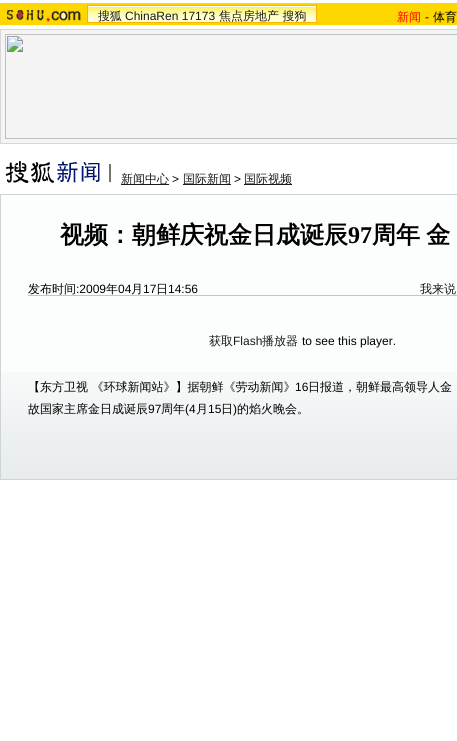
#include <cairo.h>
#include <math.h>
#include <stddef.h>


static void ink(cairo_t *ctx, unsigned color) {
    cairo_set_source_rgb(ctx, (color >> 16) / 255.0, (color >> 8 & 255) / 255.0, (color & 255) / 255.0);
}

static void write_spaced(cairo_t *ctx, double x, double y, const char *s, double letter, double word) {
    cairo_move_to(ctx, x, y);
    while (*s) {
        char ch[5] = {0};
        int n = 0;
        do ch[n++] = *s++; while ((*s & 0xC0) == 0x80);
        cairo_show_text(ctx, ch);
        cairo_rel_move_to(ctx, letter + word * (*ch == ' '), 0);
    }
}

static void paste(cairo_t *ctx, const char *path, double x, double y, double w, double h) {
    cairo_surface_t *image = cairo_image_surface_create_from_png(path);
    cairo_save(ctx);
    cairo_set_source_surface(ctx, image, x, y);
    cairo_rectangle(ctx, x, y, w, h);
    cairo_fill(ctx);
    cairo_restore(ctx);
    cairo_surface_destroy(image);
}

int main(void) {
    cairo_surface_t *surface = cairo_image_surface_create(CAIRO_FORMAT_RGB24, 457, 741);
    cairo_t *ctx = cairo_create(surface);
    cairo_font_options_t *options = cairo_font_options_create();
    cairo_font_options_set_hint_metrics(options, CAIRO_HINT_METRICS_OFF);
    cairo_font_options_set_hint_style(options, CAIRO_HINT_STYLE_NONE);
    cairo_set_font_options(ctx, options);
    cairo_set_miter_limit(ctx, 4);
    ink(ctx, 0xFFFFFF);
    cairo_paint(ctx);
    ink(ctx, 0xFFD700);
    cairo_rectangle(ctx, 0, 3, 457, 22);
    cairo_fill(ctx);
    paste(ctx, "media/1.png", 7, 10, 74, 12);
    paste(ctx, "media/2.png", 87, 5, 230, 18);
    cairo_select_font_face(ctx, "WenQuanYi Zen Hei Medium", CAIRO_FONT_SLANT_NORMAL, CAIRO_FONT_WEIGHT_NORMAL);
    cairo_set_font_size(ctx, 12);
    ink(ctx, 0x191919);
    cairo_move_to(ctx, 98, 20);
    cairo_show_text(ctx, "搜狐");
    cairo_select_font_face(ctx, "Liberation Sans", CAIRO_FONT_SLANT_NORMAL, CAIRO_FONT_WEIGHT_NORMAL);
    cairo_move_to(ctx, 125, 20);
    cairo_show_text(ctx, "ChinaRen 17173");
    cairo_select_font_face(ctx, "WenQuanYi Zen Hei Medium", CAIRO_FONT_SLANT_NORMAL, CAIRO_FONT_WEIGHT_NORMAL);
    cairo_move_to(ctx, 219, 20);
    cairo_show_text(ctx, "焦点房地产 搜狗");
    ink(ctx, 0xFF0000);
    cairo_move_to(ctx, 397, 21);
    cairo_show_text(ctx, "新闻");
    cairo_select_font_face(ctx, "Liberation Sans", CAIRO_FONT_SLANT_NORMAL, CAIRO_FONT_WEIGHT_NORMAL);
    ink(ctx, 0x000000);
    cairo_move_to(ctx, 425, 21);
    cairo_show_text(ctx, "-");
    cairo_select_font_face(ctx, "WenQuanYi Zen Hei Medium", CAIRO_FONT_SLANT_NORMAL, CAIRO_FONT_WEIGHT_NORMAL);
    cairo_move_to(ctx, 433, 21);
    cairo_show_text(ctx, "体育");
    ink(ctx, 0xF4F4F4);
    cairo_rectangle(ctx, 0.5, 29.5, 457, 114);
    cairo_fill_preserve(ctx);
    ink(ctx, 0xD7D7D7);
    cairo_set_line_width(ctx, 1);
    cairo_stroke(ctx);
    paste(ctx, "media/3.png", 5, 34, 452, 105);
    paste(ctx, "media/4.png", 5, 161, 106, 22);
    ink(ctx, 0x191919);
    cairo_rectangle(ctx, 121, 184, 48, 1);
    cairo_fill(ctx);
    cairo_move_to(ctx, 121, 183);
    cairo_show_text(ctx, "新闻中心");
    cairo_select_font_face(ctx, "Liberation Sans", CAIRO_FONT_SLANT_NORMAL, CAIRO_FONT_WEIGHT_NORMAL);
    ink(ctx, 0x000000);
    cairo_move_to(ctx, 172, 183);
    cairo_show_text(ctx, ">");
    ink(ctx, 0x191919);
    cairo_rectangle(ctx, 183, 184, 48, 1);
    cairo_fill(ctx);
    cairo_select_font_face(ctx, "WenQuanYi Zen Hei Medium", CAIRO_FONT_SLANT_NORMAL, CAIRO_FONT_WEIGHT_NORMAL);
    cairo_move_to(ctx, 183, 183);
    cairo_show_text(ctx, "国际新闻");
    cairo_select_font_face(ctx, "Liberation Sans", CAIRO_FONT_SLANT_NORMAL, CAIRO_FONT_WEIGHT_NORMAL);
    ink(ctx, 0x000000);
    cairo_move_to(ctx, 234, 183);
    cairo_show_text(ctx, ">");
    ink(ctx, 0x191919);
    cairo_rectangle(ctx, 244, 184, 48, 1);
    cairo_fill(ctx);
    cairo_select_font_face(ctx, "WenQuanYi Zen Hei Medium", CAIRO_FONT_SLANT_NORMAL, CAIRO_FONT_WEIGHT_NORMAL);
    cairo_move_to(ctx, 244, 183);
    cairo_show_text(ctx, "国际视频");
    ink(ctx, 0xFCFDFD);
    cairo_rectangle(ctx, 1, 195, 456, 177);
    cairo_fill(ctx);
    paste(ctx, "media/5.png", 1, 372, 456, 107);
    cairo_rectangle(ctx, 0.5, 194.5, 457, 285);
    ink(ctx, 0xCBD5D7);
    cairo_stroke(ctx);
    cairo_select_font_face(ctx, "WenQuanYi Zen Hei", CAIRO_FONT_SLANT_NORMAL, CAIRO_FONT_WEIGHT_BOLD);
    cairo_set_font_size(ctx, 24);
    ink(ctx, 0x000000);
    cairo_move_to(ctx, 60, 243);
    cairo_show_text(ctx, "视频：朝鲜庆祝金日成诞辰");
    cairo_select_font_face(ctx, "Liberation Serif", CAIRO_FONT_SLANT_NORMAL, CAIRO_FONT_WEIGHT_BOLD);
    cairo_move_to(ctx, 348, 243);
    cairo_show_text(ctx, "97");
    cairo_select_font_face(ctx, "WenQuanYi Zen Hei", CAIRO_FONT_SLANT_NORMAL, CAIRO_FONT_WEIGHT_BOLD);
    write_spaced(ctx, 372, 243, "周年 金", 0, -1);
    ink(ctx, 0xC5C5C5);
    cairo_rectangle(ctx, 28, 295, 429, 1);
    cairo_fill(ctx);
    cairo_select_font_face(ctx, "WenQuanYi Zen Hei Medium", CAIRO_FONT_SLANT_NORMAL, CAIRO_FONT_WEIGHT_NORMAL);
    cairo_set_font_size(ctx, 12);
    ink(ctx, 0x000000);
    cairo_move_to(ctx, 28, 293);
    cairo_show_text(ctx, "发布时间");
    cairo_select_font_face(ctx, "Liberation Sans", CAIRO_FONT_SLANT_NORMAL, CAIRO_FONT_WEIGHT_NORMAL);
    cairo_move_to(ctx, 76, 293);
    cairo_show_text(ctx, ":2009");
    cairo_select_font_face(ctx, "WenQuanYi Zen Hei Medium", CAIRO_FONT_SLANT_NORMAL, CAIRO_FONT_WEIGHT_NORMAL);
    cairo_move_to(ctx, 106, 293);
    cairo_show_text(ctx, "年");
    cairo_select_font_face(ctx, "Liberation Sans", CAIRO_FONT_SLANT_NORMAL, CAIRO_FONT_WEIGHT_NORMAL);
    cairo_move_to(ctx, 118, 293);
    cairo_show_text(ctx, "04");
    cairo_select_font_face(ctx, "WenQuanYi Zen Hei Medium", CAIRO_FONT_SLANT_NORMAL, CAIRO_FONT_WEIGHT_NORMAL);
    cairo_move_to(ctx, 131, 293);
    cairo_show_text(ctx, "月");
    cairo_select_font_face(ctx, "Liberation Sans", CAIRO_FONT_SLANT_NORMAL, CAIRO_FONT_WEIGHT_NORMAL);
    cairo_move_to(ctx, 143, 293);
    cairo_show_text(ctx, "17");
    cairo_select_font_face(ctx, "WenQuanYi Zen Hei Medium", CAIRO_FONT_SLANT_NORMAL, CAIRO_FONT_WEIGHT_NORMAL);
    cairo_move_to(ctx, 156, 293);
    cairo_show_text(ctx, "日");
    cairo_select_font_face(ctx, "Liberation Sans", CAIRO_FONT_SLANT_NORMAL, CAIRO_FONT_WEIGHT_NORMAL);
    cairo_move_to(ctx, 168, 293);
    cairo_show_text(ctx, "14:56");
    cairo_select_font_face(ctx, "WenQuanYi Zen Hei Medium", CAIRO_FONT_SLANT_NORMAL, CAIRO_FONT_WEIGHT_NORMAL);
    ink(ctx, 0x191919);
    cairo_move_to(ctx, 420, 293);
    cairo_show_text(ctx, "我来说");
    cairo_move_to(ctx, 209, 345);
    cairo_show_text(ctx, "获取");
    cairo_select_font_face(ctx, "Liberation Sans", CAIRO_FONT_SLANT_NORMAL, CAIRO_FONT_WEIGHT_NORMAL);
    cairo_move_to(ctx, 233, 345);
    cairo_show_text(ctx, "Flash");
    cairo_select_font_face(ctx, "WenQuanYi Zen Hei Medium", CAIRO_FONT_SLANT_NORMAL, CAIRO_FONT_WEIGHT_NORMAL);
    cairo_move_to(ctx, 262, 345);
    cairo_show_text(ctx, "播放器");
    cairo_select_font_face(ctx, "Liberation Sans", CAIRO_FONT_SLANT_NORMAL, CAIRO_FONT_WEIGHT_NORMAL);
    ink(ctx, 0x000000);
    cairo_move_to(ctx, 302, 345);
    cairo_show_text(ctx, "to see this player.");
    cairo_select_font_face(ctx, "WenQuanYi Zen Hei Medium", CAIRO_FONT_SLANT_NORMAL, CAIRO_FONT_WEIGHT_NORMAL);
    cairo_move_to(ctx, 28, 391);
    cairo_show_text(ctx, "【东方卫视 《环球新闻站》】据朝鲜《劳动新闻》");
    cairo_select_font_face(ctx, "Liberation Sans", CAIRO_FONT_SLANT_NORMAL, CAIRO_FONT_WEIGHT_NORMAL);
    cairo_move_to(ctx, 295, 391);
    cairo_show_text(ctx, "16");
    cairo_select_font_face(ctx, "WenQuanYi Zen Hei Medium", CAIRO_FONT_SLANT_NORMAL, CAIRO_FONT_WEIGHT_NORMAL);
    cairo_move_to(ctx, 308, 391);
    cairo_show_text(ctx, "日报道，朝鲜最高领导人金");
    cairo_move_to(ctx, 28, 413);
    cairo_show_text(ctx, "故国家主席金日成诞辰");
    cairo_select_font_face(ctx, "Liberation Sans", CAIRO_FONT_SLANT_NORMAL, CAIRO_FONT_WEIGHT_NORMAL);
    cairo_move_to(ctx, 148, 413);
    cairo_show_text(ctx, "97");
    cairo_select_font_face(ctx, "WenQuanYi Zen Hei Medium", CAIRO_FONT_SLANT_NORMAL, CAIRO_FONT_WEIGHT_NORMAL);
    cairo_move_to(ctx, 161, 413);
    cairo_show_text(ctx, "周年");
    cairo_select_font_face(ctx, "Liberation Sans", CAIRO_FONT_SLANT_NORMAL, CAIRO_FONT_WEIGHT_NORMAL);
    cairo_move_to(ctx, 185, 413);
    cairo_show_text(ctx, "(4");
    cairo_select_font_face(ctx, "WenQuanYi Zen Hei Medium", CAIRO_FONT_SLANT_NORMAL, CAIRO_FONT_WEIGHT_NORMAL);
    cairo_move_to(ctx, 196, 413);
    cairo_show_text(ctx, "月");
    cairo_select_font_face(ctx, "Liberation Sans", CAIRO_FONT_SLANT_NORMAL, CAIRO_FONT_WEIGHT_NORMAL);
    cairo_move_to(ctx, 208, 413);
    cairo_show_text(ctx, "15");
    cairo_select_font_face(ctx, "WenQuanYi Zen Hei Medium", CAIRO_FONT_SLANT_NORMAL, CAIRO_FONT_WEIGHT_NORMAL);
    cairo_move_to(ctx, 221, 413);
    cairo_show_text(ctx, "日");
    cairo_select_font_face(ctx, "Liberation Sans", CAIRO_FONT_SLANT_NORMAL, CAIRO_FONT_WEIGHT_NORMAL);
    cairo_move_to(ctx, 233, 413);
    cairo_show_text(ctx, ")");
    cairo_select_font_face(ctx, "WenQuanYi Zen Hei Medium", CAIRO_FONT_SLANT_NORMAL, CAIRO_FONT_WEIGHT_NORMAL);
    cairo_move_to(ctx, 237, 413);
    cairo_show_text(ctx, "的焰火晚会。");
    cairo_surface_write_to_png(surface, "image.png");
    cairo_font_options_destroy(options);
    cairo_destroy(ctx);
    cairo_surface_destroy(surface);
    return 0;
}
